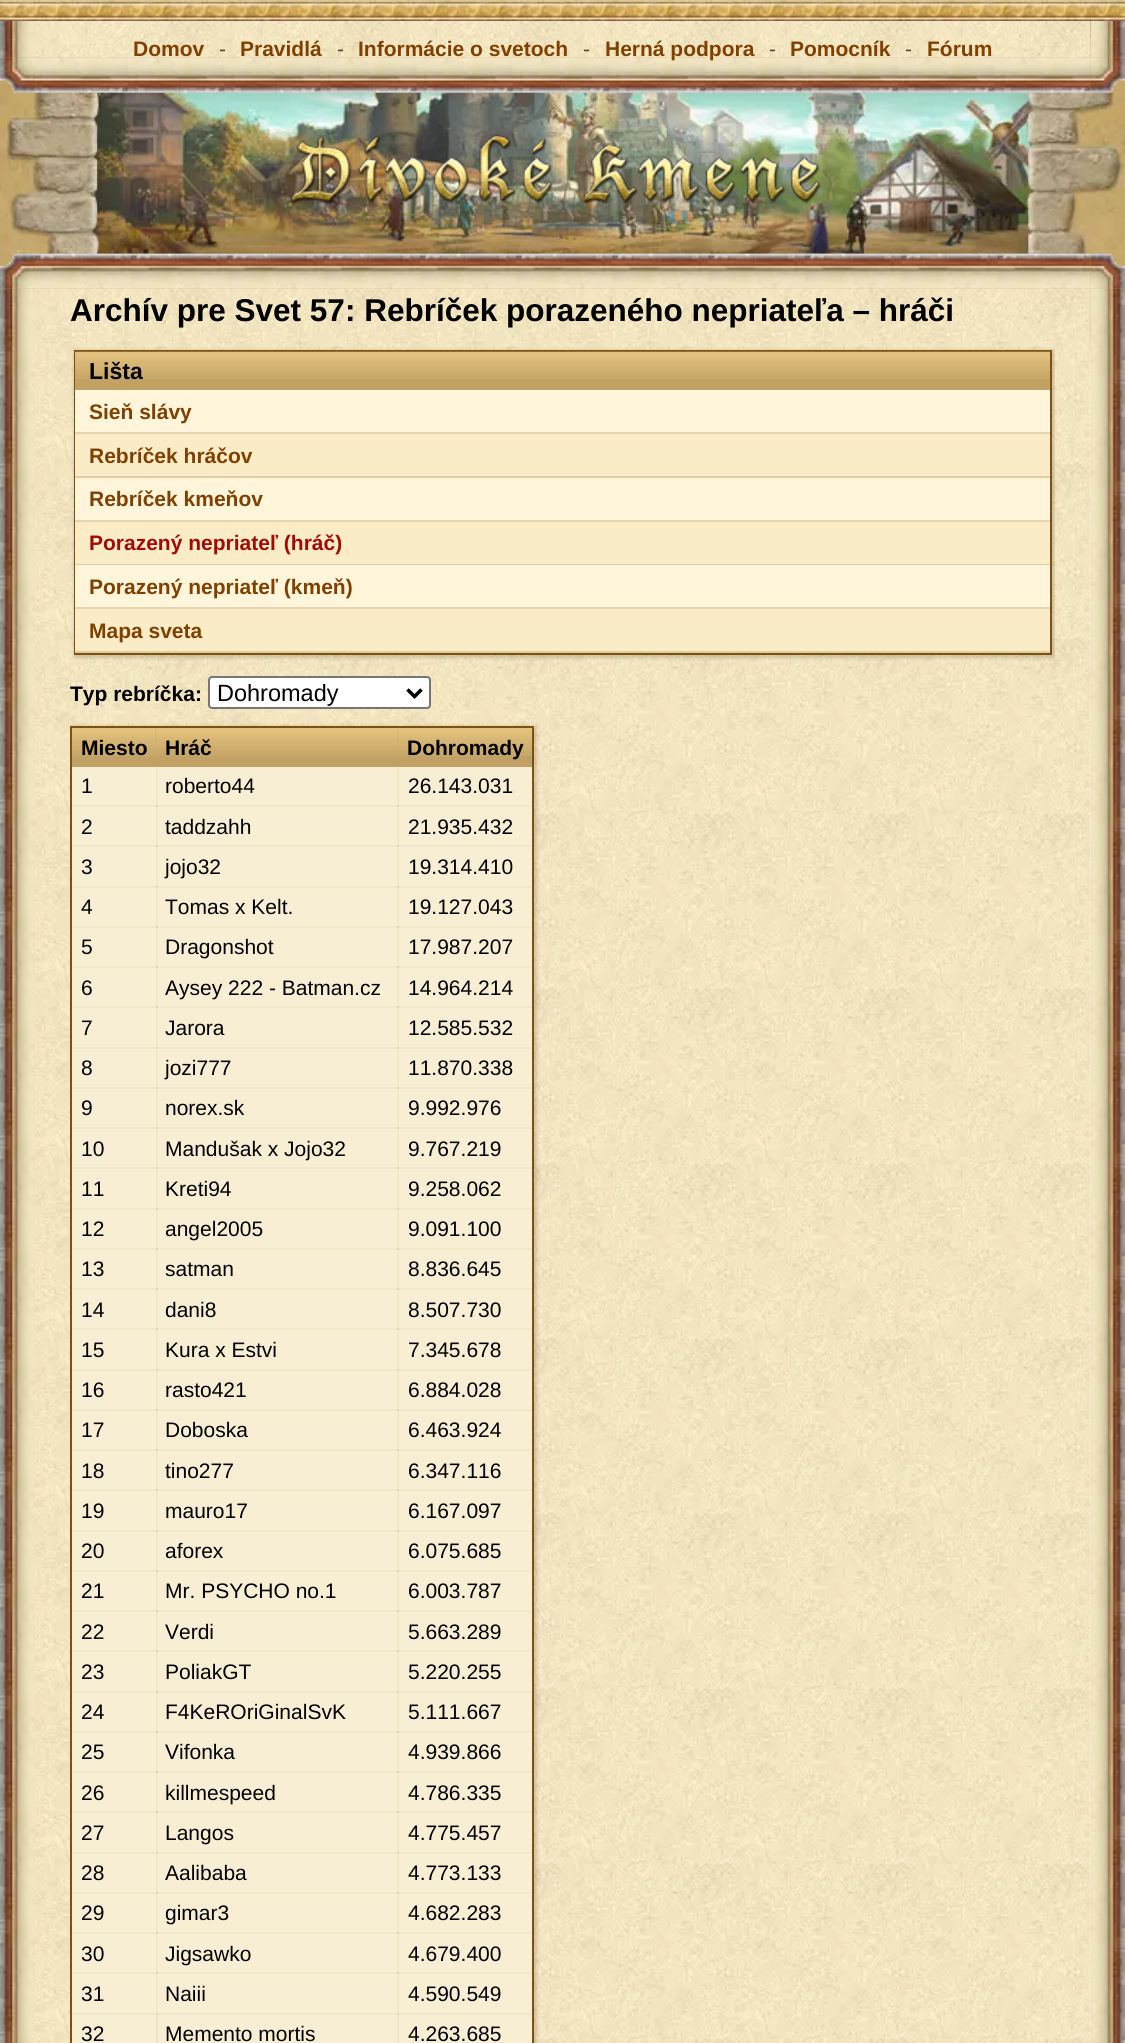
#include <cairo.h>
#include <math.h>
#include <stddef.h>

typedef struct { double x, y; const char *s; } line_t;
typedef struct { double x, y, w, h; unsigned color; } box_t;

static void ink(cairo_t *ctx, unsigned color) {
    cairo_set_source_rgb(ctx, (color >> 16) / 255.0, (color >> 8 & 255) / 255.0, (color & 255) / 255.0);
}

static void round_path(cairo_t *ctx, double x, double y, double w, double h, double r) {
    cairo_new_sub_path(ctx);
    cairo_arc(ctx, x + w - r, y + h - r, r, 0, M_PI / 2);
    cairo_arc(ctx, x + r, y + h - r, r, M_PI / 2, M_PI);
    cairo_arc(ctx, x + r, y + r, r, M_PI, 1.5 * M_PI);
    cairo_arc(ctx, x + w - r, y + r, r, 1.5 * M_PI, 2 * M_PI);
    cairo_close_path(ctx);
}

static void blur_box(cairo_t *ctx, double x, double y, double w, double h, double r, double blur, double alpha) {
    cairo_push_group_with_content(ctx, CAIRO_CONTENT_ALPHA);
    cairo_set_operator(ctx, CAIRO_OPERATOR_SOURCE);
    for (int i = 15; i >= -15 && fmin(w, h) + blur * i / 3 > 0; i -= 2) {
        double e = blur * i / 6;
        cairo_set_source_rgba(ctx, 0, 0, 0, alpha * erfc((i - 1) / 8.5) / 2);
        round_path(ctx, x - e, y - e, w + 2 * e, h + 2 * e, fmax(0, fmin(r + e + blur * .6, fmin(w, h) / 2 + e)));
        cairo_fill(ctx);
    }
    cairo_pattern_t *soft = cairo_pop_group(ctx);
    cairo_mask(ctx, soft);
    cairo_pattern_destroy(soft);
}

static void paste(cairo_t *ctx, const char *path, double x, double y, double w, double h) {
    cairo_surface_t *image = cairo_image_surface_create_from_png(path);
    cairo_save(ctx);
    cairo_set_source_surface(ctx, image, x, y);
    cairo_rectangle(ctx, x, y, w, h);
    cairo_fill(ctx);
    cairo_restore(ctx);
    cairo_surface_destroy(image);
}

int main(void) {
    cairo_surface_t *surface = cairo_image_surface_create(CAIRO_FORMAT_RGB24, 1125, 2043);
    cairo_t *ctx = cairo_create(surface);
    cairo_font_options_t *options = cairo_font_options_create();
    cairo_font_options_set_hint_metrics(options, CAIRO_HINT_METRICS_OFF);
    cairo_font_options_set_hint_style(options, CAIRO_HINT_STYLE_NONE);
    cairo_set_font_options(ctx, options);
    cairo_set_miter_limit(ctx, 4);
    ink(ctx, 0xFFFFFF);
    cairo_paint(ctx);
    paste(ctx, "media/1.png", 0, 0, 1125, 350);
    paste(ctx, "media/2.png", 0, 21, 35, 37);
    paste(ctx, "media/6.png", 35, 57, 1056, 36);
    paste(ctx, "media/3.png", 35, 21, 1056, 37);
    paste(ctx, "media/4.png", 1090, 21, 35, 37);
    cairo_select_font_face(ctx, "Liberation Sans", CAIRO_FONT_SLANT_NORMAL, CAIRO_FONT_WEIGHT_BOLD);
    cairo_set_font_size(ctx, 21);
    ink(ctx, 0x804000);
    cairo_move_to(ctx, 133, 56);
    cairo_show_text(ctx, "Domov");
    cairo_select_font_face(ctx, "Liberation Sans", CAIRO_FONT_SLANT_NORMAL, CAIRO_FONT_WEIGHT_NORMAL);
    ink(ctx, 0x554433);
    cairo_move_to(ctx, 219, 56);
    cairo_show_text(ctx, "-");
    cairo_select_font_face(ctx, "Liberation Sans", CAIRO_FONT_SLANT_NORMAL, CAIRO_FONT_WEIGHT_BOLD);
    ink(ctx, 0x804000);
    cairo_move_to(ctx, 240, 56);
    cairo_show_text(ctx, "Pravidlá");
    cairo_select_font_face(ctx, "Liberation Sans", CAIRO_FONT_SLANT_NORMAL, CAIRO_FONT_WEIGHT_NORMAL);
    ink(ctx, 0x554433);
    cairo_move_to(ctx, 337, 56);
    cairo_show_text(ctx, "-");
    cairo_select_font_face(ctx, "Liberation Sans", CAIRO_FONT_SLANT_NORMAL, CAIRO_FONT_WEIGHT_BOLD);
    ink(ctx, 0x804000);
    cairo_move_to(ctx, 358, 56);
    cairo_show_text(ctx, "Informácie o svetoch");
    cairo_select_font_face(ctx, "Liberation Sans", CAIRO_FONT_SLANT_NORMAL, CAIRO_FONT_WEIGHT_NORMAL);
    ink(ctx, 0x554433);
    cairo_move_to(ctx, 583, 56);
    cairo_show_text(ctx, "-");
    cairo_select_font_face(ctx, "Liberation Sans", CAIRO_FONT_SLANT_NORMAL, CAIRO_FONT_WEIGHT_BOLD);
    ink(ctx, 0x804000);
    cairo_move_to(ctx, 605, 56);
    cairo_show_text(ctx, "Herná podpora");
    cairo_select_font_face(ctx, "Liberation Sans", CAIRO_FONT_SLANT_NORMAL, CAIRO_FONT_WEIGHT_NORMAL);
    ink(ctx, 0x554433);
    cairo_move_to(ctx, 769, 56);
    cairo_show_text(ctx, "-");
    cairo_select_font_face(ctx, "Liberation Sans", CAIRO_FONT_SLANT_NORMAL, CAIRO_FONT_WEIGHT_BOLD);
    ink(ctx, 0x804000);
    cairo_move_to(ctx, 790, 56);
    cairo_show_text(ctx, "Pomocník");
    cairo_select_font_face(ctx, "Liberation Sans", CAIRO_FONT_SLANT_NORMAL, CAIRO_FONT_WEIGHT_NORMAL);
    ink(ctx, 0x554433);
    cairo_move_to(ctx, 905, 56);
    cairo_show_text(ctx, "-");
    cairo_select_font_face(ctx, "Liberation Sans", CAIRO_FONT_SLANT_NORMAL, CAIRO_FONT_WEIGHT_BOLD);
    ink(ctx, 0x804000);
    cairo_move_to(ctx, 927, 56);
    cairo_show_text(ctx, "Fórum");
    paste(ctx, "media/5.png", 0, 57, 35, 36);
    paste(ctx, "media/7.png", 1090, 57, 35, 36);
    paste(ctx, "media/8.png", 0, 92, 1125, 162);
    paste(ctx, "media/9.png", 290, 134, 531, 71);
    paste(ctx, "media/10.png", 0, 253, 35, 36);
    paste(ctx, "media/12.png", 1090, 253, 35, 36);
    paste(ctx, "media/11.png", 35, 253, 1056, 36);
    paste(ctx, "media/13.png", 0, 288, 35, 1755);
    paste(ctx, "media/14.png", 35, 288, 1056, 1755);
    paste(ctx, "media/15.png", 1090, 288, 35, 1755);
    cairo_set_font_size(ctx, 31.5);
    ink(ctx, 0x000000);
    cairo_move_to(ctx, 70, 321);
    cairo_show_text(ctx, "Archív pre Svet 57: Rebríček porazeného nepriateľa – hráči");
    cairo_save(ctx);
    cairo_rectangle(ctx, 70, 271, 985, 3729);
    cairo_clip(ctx);
    ink(ctx, 0x3C1E00);
    blur_box(ctx, 74, 350, 981, 308, 0, 2, 0.2);
    cairo_restore(ctx);
    cairo_rectangle(ctx, 75, 351, 976, 303);
    ink(ctx, 0x7D510F);
    cairo_stroke(ctx);
    ink(ctx, 0xC1A264);
    cairo_rectangle(ctx, 75, 352, 975, 38);
    cairo_fill(ctx);
    paste(ctx, "media/16.png", 75, 351, 975, 28);
    cairo_set_font_size(ctx, 23);
    ink(ctx, 0x000000);
    cairo_move_to(ctx, 89, 379);
    cairo_show_text(ctx, "Lišta");
    ink(ctx, 0xFFF5DA);
    cairo_rectangle(ctx, 75, 390, 975, 42);
    cairo_fill(ctx);
    ink(ctx, 0xE5D4B1);
    cairo_rectangle(ctx, 75, 432, 975, 2);
    cairo_fill(ctx);
    cairo_set_font_size(ctx, 21);
    ink(ctx, 0x804000);
    cairo_move_to(ctx, 89, 419);
    cairo_show_text(ctx, "Sieň slávy");
    ink(ctx, 0xFAECC7);
    cairo_rectangle(ctx, 75, 434, 975, 42);
    cairo_fill(ctx);
    ink(ctx, 0xE1CDA2);
    cairo_rectangle(ctx, 75, 476, 975, 2);
    cairo_fill(ctx);
    ink(ctx, 0x804000);
    cairo_move_to(ctx, 89, 463);
    cairo_show_text(ctx, "Rebríček hráčov");
    ink(ctx, 0xFFF5DA);
    cairo_rectangle(ctx, 75, 478, 975, 42);
    cairo_fill(ctx);
    ink(ctx, 0xE5D4B1);
    cairo_rectangle(ctx, 75, 520, 975, 2);
    cairo_fill(ctx);
    ink(ctx, 0x804000);
    cairo_move_to(ctx, 89, 506);
    cairo_show_text(ctx, "Rebríček kmeňov");
    ink(ctx, 0xFAECC7);
    cairo_rectangle(ctx, 75, 522, 975, 43);
    cairo_fill(ctx);
    cairo_set_source_rgba(ctx, 0.49, 0.318, 0.059, 0.2);
    cairo_rectangle(ctx, 75, 564, 975, 1);
    cairo_fill(ctx);
    ink(ctx, 0xA30A06);
    cairo_move_to(ctx, 89, 550);
    cairo_show_text(ctx, "Porazený nepriateľ (hráč)");
    ink(ctx, 0xFFF5DA);
    cairo_rectangle(ctx, 75, 565, 975, 42);
    cairo_fill(ctx);
    ink(ctx, 0xE5D4B1);
    cairo_rectangle(ctx, 75, 607, 975, 2);
    cairo_fill(ctx);
    ink(ctx, 0x804000);
    cairo_move_to(ctx, 89, 594);
    cairo_show_text(ctx, "Porazený nepriateľ (kmeň)");
    ink(ctx, 0xFAECC7);
    cairo_rectangle(ctx, 75, 609, 975, 42);
    cairo_fill(ctx);
    ink(ctx, 0xE1CDA2);
    cairo_rectangle(ctx, 75, 651, 975, 2);
    cairo_fill(ctx);
    ink(ctx, 0x804000);
    cairo_move_to(ctx, 89, 638);
    cairo_show_text(ctx, "Mapa sveta");
    ink(ctx, 0x000000);
    cairo_move_to(ctx, 70, 701);
    cairo_show_text(ctx, "Typ rebríčka:");
    ink(ctx, 0xFFFFFF);
    round_path(ctx, 209, 677, 221, 31, 3);
    cairo_fill_preserve(ctx);
    ink(ctx, 0x767676);
    cairo_stroke(ctx);
    cairo_new_path(ctx);
    cairo_move_to(ctx, 407.5, 689.5);
    cairo_line_to(ctx, 414.5, 696.5);
    cairo_line_to(ctx, 421.5, 689.5);
    ink(ctx, 0x000000);
    cairo_set_line_width(ctx, 3.5);
    cairo_stroke(ctx);
    cairo_select_font_face(ctx, "Liberation Sans", CAIRO_FONT_SLANT_NORMAL, CAIRO_FONT_WEIGHT_NORMAL);
    cairo_set_font_size(ctx, 23.5);
    cairo_move_to(ctx, 217, 701);
    cairo_show_text(ctx, "Dohromady");
    cairo_save(ctx);
    cairo_rectangle(ctx, 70, 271, 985, 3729);
    cairo_clip(ctx);
    ink(ctx, 0x3C1E00);
    blur_box(ctx, 70, 726, 467, 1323, 0, 2, 0.2);
    cairo_restore(ctx);
    {
        static const box_t items[] = {
            {70, 726, 464, 2, 0x7D510F},
            {532, 726, 2, 1317, 0x7D510F},
            {70, 726, 2, 1317, 0x7D510F},
            {72, 728, 84, 39, 0xC1A264},
        };
        for (size_t i = 0; i < sizeof items / sizeof *items; i++) {
            ink(ctx, items[i].color);
            cairo_rectangle(ctx, items[i].x, items[i].y, items[i].w, items[i].h);
            cairo_fill(ctx);
        }
    }
    paste(ctx, "media/17.png", 72, 728, 84, 32);
    cairo_select_font_face(ctx, "Liberation Sans", CAIRO_FONT_SLANT_NORMAL, CAIRO_FONT_WEIGHT_BOLD);
    cairo_set_font_size(ctx, 21);
    ink(ctx, 0x000000);
    cairo_move_to(ctx, 81, 755);
    cairo_show_text(ctx, "Miesto");
    ink(ctx, 0xC1A264);
    cairo_rectangle(ctx, 156, 759, 241, 8);
    cairo_fill(ctx);
    paste(ctx, "media/18.png", 156, 728, 241, 32);
    ink(ctx, 0x000000);
    cairo_move_to(ctx, 165, 755);
    cairo_show_text(ctx, "Hráč");
    ink(ctx, 0xC1A264);
    cairo_rectangle(ctx, 397, 728, 135, 39);
    cairo_fill(ctx);
    paste(ctx, "media/19.png", 397, 728, 135, 28);
    ink(ctx, 0x000000);
    cairo_move_to(ctx, 407, 755);
    cairo_show_text(ctx, "Dohromady");
    ink(ctx, 0xF7EED3);
    cairo_rectangle(ctx, 72, 767, 460, 40);
    cairo_fill(ctx);
    cairo_rectangle(ctx, 72, 807, 460, 40);
    cairo_fill(ctx);
    cairo_rectangle(ctx, 72, 847, 460, 40);
    cairo_fill(ctx);
    cairo_rectangle(ctx, 72, 887, 460, 41);
    cairo_fill(ctx);
    cairo_rectangle(ctx, 72, 928, 460, 40);
    cairo_fill(ctx);
    cairo_rectangle(ctx, 72, 968, 460, 40);
    cairo_fill(ctx);
    cairo_rectangle(ctx, 72, 1008, 460, 40);
    cairo_fill(ctx);
    cairo_rectangle(ctx, 72, 1048, 460, 41);
    cairo_fill(ctx);
    cairo_rectangle(ctx, 72, 1089, 460, 40);
    cairo_fill(ctx);
    cairo_rectangle(ctx, 72, 1129, 460, 40);
    cairo_fill(ctx);
    cairo_rectangle(ctx, 72, 1169, 460, 40);
    cairo_fill(ctx);
    cairo_rectangle(ctx, 72, 1209, 460, 41);
    cairo_fill(ctx);
    cairo_rectangle(ctx, 72, 1250, 460, 40);
    cairo_fill(ctx);
    cairo_rectangle(ctx, 72, 1290, 460, 40);
    cairo_fill(ctx);
    cairo_rectangle(ctx, 72, 1330, 460, 40);
    cairo_fill(ctx);
    cairo_rectangle(ctx, 72, 1370, 460, 41);
    cairo_fill(ctx);
    cairo_rectangle(ctx, 72, 1411, 460, 40);
    cairo_fill(ctx);
    cairo_rectangle(ctx, 72, 1451, 460, 40);
    cairo_fill(ctx);
    cairo_rectangle(ctx, 72, 1491, 460, 40);
    cairo_fill(ctx);
    cairo_rectangle(ctx, 72, 1531, 460, 41);
    cairo_fill(ctx);
    cairo_rectangle(ctx, 72, 1572, 460, 40);
    cairo_fill(ctx);
    cairo_rectangle(ctx, 72, 1612, 460, 40);
    cairo_fill(ctx);
    cairo_rectangle(ctx, 72, 1652, 460, 40);
    cairo_fill(ctx);
    cairo_rectangle(ctx, 72, 1692, 460, 41);
    cairo_fill(ctx);
    cairo_rectangle(ctx, 72, 1733, 460, 40);
    cairo_fill(ctx);
    cairo_rectangle(ctx, 72, 1773, 460, 40);
    cairo_fill(ctx);
    cairo_rectangle(ctx, 72, 1813, 460, 40);
    cairo_fill(ctx);
    cairo_rectangle(ctx, 72, 1853, 460, 41);
    cairo_fill(ctx);
    cairo_rectangle(ctx, 72, 1894, 460, 40);
    cairo_fill(ctx);
    cairo_rectangle(ctx, 72, 1934, 460, 40);
    cairo_fill(ctx);
    cairo_rectangle(ctx, 72, 1974, 460, 40);
    cairo_fill(ctx);
    ink(ctx, 0xF1E6C9);
    cairo_rectangle(ctx, 397, 2013, 2, 30);
    cairo_fill(ctx);
    ink(ctx, 0xF7EED3);
    cairo_rectangle(ctx, 399, 2014, 133, 29);
    cairo_fill(ctx);
    cairo_set_source_rgba(ctx, 0.49, 0.318, 0.059, 0.05);
    cairo_rectangle(ctx, 397, 2013, 137, 2);
    cairo_fill(ctx);
    cairo_rectangle(ctx, 397, 1972, 2, 42);
    cairo_fill(ctx);
    cairo_rectangle(ctx, 397, 1972, 137, 2);
    cairo_fill(ctx);
    cairo_rectangle(ctx, 397, 1932, 2, 42);
    cairo_fill(ctx);
    cairo_rectangle(ctx, 397, 1932, 137, 2);
    cairo_fill(ctx);
    cairo_rectangle(ctx, 397, 1892, 2, 42);
    cairo_fill(ctx);
    cairo_rectangle(ctx, 397, 1892, 137, 2);
    cairo_fill(ctx);
    cairo_rectangle(ctx, 397, 1852, 2, 42);
    cairo_fill(ctx);
    cairo_rectangle(ctx, 397, 1852, 137, 2);
    cairo_fill(ctx);
    cairo_rectangle(ctx, 397, 1811, 2, 42);
    cairo_fill(ctx);
    cairo_rectangle(ctx, 397, 1811, 137, 2);
    cairo_fill(ctx);
    cairo_rectangle(ctx, 397, 1771, 2, 42);
    cairo_fill(ctx);
    cairo_rectangle(ctx, 397, 1771, 137, 2);
    cairo_fill(ctx);
    cairo_rectangle(ctx, 397, 1731, 2, 42);
    cairo_fill(ctx);
    cairo_rectangle(ctx, 397, 1731, 137, 2);
    cairo_fill(ctx);
    cairo_rectangle(ctx, 397, 1691, 2, 42);
    cairo_fill(ctx);
    cairo_rectangle(ctx, 397, 1691, 137, 2);
    cairo_fill(ctx);
    cairo_rectangle(ctx, 397, 1650, 2, 42);
    cairo_fill(ctx);
    cairo_rectangle(ctx, 397, 1650, 137, 2);
    cairo_fill(ctx);
    cairo_rectangle(ctx, 397, 1610, 2, 42);
    cairo_fill(ctx);
    cairo_rectangle(ctx, 397, 1610, 137, 2);
    cairo_fill(ctx);
    cairo_rectangle(ctx, 397, 1570, 2, 42);
    cairo_fill(ctx);
    cairo_rectangle(ctx, 397, 1570, 137, 2);
    cairo_fill(ctx);
    cairo_rectangle(ctx, 397, 1530, 2, 42);
    cairo_fill(ctx);
    cairo_rectangle(ctx, 397, 1530, 137, 2);
    cairo_fill(ctx);
    cairo_rectangle(ctx, 397, 1489, 2, 42);
    cairo_fill(ctx);
    cairo_rectangle(ctx, 397, 1489, 137, 2);
    cairo_fill(ctx);
    cairo_rectangle(ctx, 397, 1449, 2, 42);
    cairo_fill(ctx);
    cairo_rectangle(ctx, 397, 1449, 137, 2);
    cairo_fill(ctx);
    cairo_rectangle(ctx, 397, 1409, 2, 42);
    cairo_fill(ctx);
    cairo_rectangle(ctx, 397, 1409, 137, 2);
    cairo_fill(ctx);
    cairo_rectangle(ctx, 397, 1369, 2, 42);
    cairo_fill(ctx);
    cairo_rectangle(ctx, 397, 1369, 137, 2);
    cairo_fill(ctx);
    cairo_rectangle(ctx, 397, 1328, 2, 42);
    cairo_fill(ctx);
    cairo_rectangle(ctx, 397, 1328, 137, 2);
    cairo_fill(ctx);
    cairo_rectangle(ctx, 397, 1288, 2, 42);
    cairo_fill(ctx);
    cairo_rectangle(ctx, 397, 1288, 137, 2);
    cairo_fill(ctx);
    cairo_rectangle(ctx, 397, 1248, 2, 42);
    cairo_fill(ctx);
    cairo_rectangle(ctx, 397, 1248, 137, 2);
    cairo_fill(ctx);
    cairo_rectangle(ctx, 397, 1208, 2, 42);
    cairo_fill(ctx);
    cairo_rectangle(ctx, 397, 1208, 137, 2);
    cairo_fill(ctx);
    cairo_rectangle(ctx, 397, 1167, 2, 42);
    cairo_fill(ctx);
    cairo_rectangle(ctx, 397, 1167, 137, 2);
    cairo_fill(ctx);
    cairo_rectangle(ctx, 397, 1127, 2, 42);
    cairo_fill(ctx);
    cairo_rectangle(ctx, 397, 1127, 137, 2);
    cairo_fill(ctx);
    cairo_rectangle(ctx, 397, 1087, 2, 42);
    cairo_fill(ctx);
    cairo_rectangle(ctx, 397, 1087, 137, 2);
    cairo_fill(ctx);
    cairo_rectangle(ctx, 397, 1047, 2, 42);
    cairo_fill(ctx);
    cairo_rectangle(ctx, 397, 1047, 137, 2);
    cairo_fill(ctx);
    cairo_rectangle(ctx, 397, 1006, 2, 42);
    cairo_fill(ctx);
    cairo_rectangle(ctx, 397, 1006, 137, 2);
    cairo_fill(ctx);
    cairo_rectangle(ctx, 397, 966, 2, 42);
    cairo_fill(ctx);
    cairo_rectangle(ctx, 397, 966, 137, 2);
    cairo_fill(ctx);
    cairo_rectangle(ctx, 397, 926, 2, 42);
    cairo_fill(ctx);
    cairo_rectangle(ctx, 397, 926, 137, 2);
    cairo_fill(ctx);
    cairo_rectangle(ctx, 397, 886, 2, 42);
    cairo_fill(ctx);
    cairo_rectangle(ctx, 397, 886, 137, 2);
    cairo_fill(ctx);
    cairo_rectangle(ctx, 397, 845, 2, 42);
    cairo_fill(ctx);
    cairo_rectangle(ctx, 397, 845, 137, 2);
    cairo_fill(ctx);
    cairo_rectangle(ctx, 397, 805, 2, 42);
    cairo_fill(ctx);
    cairo_rectangle(ctx, 397, 805, 137, 2);
    cairo_fill(ctx);
    cairo_rectangle(ctx, 397, 767, 2, 40);
    cairo_fill(ctx);
    ink(ctx, 0xF1E6C9);
    cairo_rectangle(ctx, 156, 2013, 2, 30);
    cairo_fill(ctx);
    ink(ctx, 0xF7EED3);
    cairo_rectangle(ctx, 158, 2014, 239, 29);
    cairo_fill(ctx);
    cairo_set_source_rgba(ctx, 0.49, 0.318, 0.059, 0.05);
    cairo_rectangle(ctx, 156, 2013, 243, 2);
    cairo_fill(ctx);
    cairo_rectangle(ctx, 156, 1972, 2, 42);
    cairo_fill(ctx);
    cairo_rectangle(ctx, 156, 1972, 243, 2);
    cairo_fill(ctx);
    cairo_rectangle(ctx, 156, 1932, 2, 42);
    cairo_fill(ctx);
    cairo_rectangle(ctx, 156, 1932, 243, 2);
    cairo_fill(ctx);
    cairo_rectangle(ctx, 156, 1892, 2, 42);
    cairo_fill(ctx);
    cairo_rectangle(ctx, 156, 1892, 243, 2);
    cairo_fill(ctx);
    cairo_rectangle(ctx, 156, 1852, 2, 42);
    cairo_fill(ctx);
    cairo_rectangle(ctx, 156, 1852, 243, 2);
    cairo_fill(ctx);
    cairo_rectangle(ctx, 156, 1811, 2, 42);
    cairo_fill(ctx);
    cairo_rectangle(ctx, 156, 1811, 243, 2);
    cairo_fill(ctx);
    cairo_rectangle(ctx, 156, 1771, 2, 42);
    cairo_fill(ctx);
    cairo_rectangle(ctx, 156, 1771, 243, 2);
    cairo_fill(ctx);
    cairo_rectangle(ctx, 156, 1731, 2, 42);
    cairo_fill(ctx);
    cairo_rectangle(ctx, 156, 1731, 243, 2);
    cairo_fill(ctx);
    cairo_rectangle(ctx, 156, 1691, 2, 42);
    cairo_fill(ctx);
    cairo_rectangle(ctx, 156, 1691, 243, 2);
    cairo_fill(ctx);
    cairo_rectangle(ctx, 156, 1650, 2, 42);
    cairo_fill(ctx);
    cairo_rectangle(ctx, 156, 1650, 243, 2);
    cairo_fill(ctx);
    cairo_rectangle(ctx, 156, 1610, 2, 42);
    cairo_fill(ctx);
    cairo_rectangle(ctx, 156, 1610, 243, 2);
    cairo_fill(ctx);
    cairo_rectangle(ctx, 156, 1570, 2, 42);
    cairo_fill(ctx);
    cairo_rectangle(ctx, 156, 1570, 243, 2);
    cairo_fill(ctx);
    cairo_rectangle(ctx, 156, 1530, 2, 42);
    cairo_fill(ctx);
    cairo_rectangle(ctx, 156, 1530, 243, 2);
    cairo_fill(ctx);
    cairo_rectangle(ctx, 156, 1489, 2, 42);
    cairo_fill(ctx);
    cairo_rectangle(ctx, 156, 1489, 243, 2);
    cairo_fill(ctx);
    cairo_rectangle(ctx, 156, 1449, 2, 42);
    cairo_fill(ctx);
    cairo_rectangle(ctx, 156, 1449, 243, 2);
    cairo_fill(ctx);
    cairo_rectangle(ctx, 156, 1409, 2, 42);
    cairo_fill(ctx);
    cairo_rectangle(ctx, 156, 1409, 243, 2);
    cairo_fill(ctx);
    cairo_rectangle(ctx, 156, 1369, 2, 42);
    cairo_fill(ctx);
    cairo_rectangle(ctx, 156, 1369, 243, 2);
    cairo_fill(ctx);
    cairo_rectangle(ctx, 156, 1328, 2, 42);
    cairo_fill(ctx);
    cairo_rectangle(ctx, 156, 1328, 243, 2);
    cairo_fill(ctx);
    cairo_rectangle(ctx, 156, 1288, 2, 42);
    cairo_fill(ctx);
    cairo_rectangle(ctx, 156, 1288, 243, 2);
    cairo_fill(ctx);
    cairo_rectangle(ctx, 156, 1248, 2, 42);
    cairo_fill(ctx);
    cairo_rectangle(ctx, 156, 1248, 243, 2);
    cairo_fill(ctx);
    cairo_rectangle(ctx, 156, 1208, 2, 42);
    cairo_fill(ctx);
    cairo_rectangle(ctx, 156, 1208, 243, 2);
    cairo_fill(ctx);
    cairo_rectangle(ctx, 156, 1167, 2, 42);
    cairo_fill(ctx);
    cairo_rectangle(ctx, 156, 1167, 243, 2);
    cairo_fill(ctx);
    cairo_rectangle(ctx, 156, 1127, 2, 42);
    cairo_fill(ctx);
    cairo_rectangle(ctx, 156, 1127, 243, 2);
    cairo_fill(ctx);
    cairo_rectangle(ctx, 156, 1087, 2, 42);
    cairo_fill(ctx);
    cairo_rectangle(ctx, 156, 1087, 243, 2);
    cairo_fill(ctx);
    cairo_rectangle(ctx, 156, 1047, 2, 42);
    cairo_fill(ctx);
    cairo_rectangle(ctx, 156, 1047, 243, 2);
    cairo_fill(ctx);
    cairo_rectangle(ctx, 156, 1006, 2, 42);
    cairo_fill(ctx);
    cairo_rectangle(ctx, 156, 1006, 243, 2);
    cairo_fill(ctx);
    cairo_rectangle(ctx, 156, 966, 2, 42);
    cairo_fill(ctx);
    cairo_rectangle(ctx, 156, 966, 243, 2);
    cairo_fill(ctx);
    cairo_rectangle(ctx, 156, 926, 2, 42);
    cairo_fill(ctx);
    cairo_rectangle(ctx, 156, 926, 243, 2);
    cairo_fill(ctx);
    cairo_rectangle(ctx, 156, 886, 2, 42);
    cairo_fill(ctx);
    cairo_rectangle(ctx, 156, 886, 243, 2);
    cairo_fill(ctx);
    cairo_rectangle(ctx, 156, 845, 2, 42);
    cairo_fill(ctx);
    cairo_rectangle(ctx, 156, 845, 243, 2);
    cairo_fill(ctx);
    cairo_rectangle(ctx, 156, 805, 2, 42);
    cairo_fill(ctx);
    cairo_rectangle(ctx, 156, 805, 243, 2);
    cairo_fill(ctx);
    cairo_rectangle(ctx, 156, 767, 2, 40);
    cairo_fill(ctx);
    cairo_rectangle(ctx, 70, 805, 88, 2);
    cairo_fill(ctx);
    cairo_select_font_face(ctx, "Liberation Sans", CAIRO_FONT_SLANT_NORMAL, CAIRO_FONT_WEIGHT_NORMAL);
    ink(ctx, 0x000000);
    {
        static const line_t items[] = {
            {81, 793, "1"},
            {165, 793, "roberto44"},
            {408, 793, "26.143.031"},
        };
        for (size_t i = 0; i < sizeof items / sizeof *items; i++) {
            cairo_move_to(ctx, items[i].x, items[i].y);
            cairo_show_text(ctx, items[i].s);
        }
    }
    cairo_set_source_rgba(ctx, 0.49, 0.318, 0.059, 0.05);
    cairo_rectangle(ctx, 70, 845, 88, 2);
    cairo_fill(ctx);
    ink(ctx, 0x000000);
    {
        static const line_t items[] = {
            {81, 834, "2"},
            {165, 834, "taddzahh"},
            {408, 834, "21.935.432"},
        };
        for (size_t i = 0; i < sizeof items / sizeof *items; i++) {
            cairo_move_to(ctx, items[i].x, items[i].y);
            cairo_show_text(ctx, items[i].s);
        }
    }
    cairo_set_source_rgba(ctx, 0.49, 0.318, 0.059, 0.05);
    cairo_rectangle(ctx, 70, 886, 88, 2);
    cairo_fill(ctx);
    ink(ctx, 0x000000);
    {
        static const line_t items[] = {
            {81, 874, "3"},
            {165, 874, "jojo32"},
            {408, 874, "19.314.410"},
        };
        for (size_t i = 0; i < sizeof items / sizeof *items; i++) {
            cairo_move_to(ctx, items[i].x, items[i].y);
            cairo_show_text(ctx, items[i].s);
        }
    }
    cairo_set_source_rgba(ctx, 0.49, 0.318, 0.059, 0.05);
    cairo_rectangle(ctx, 70, 926, 88, 2);
    cairo_fill(ctx);
    ink(ctx, 0x000000);
    {
        static const line_t items[] = {
            {81, 914, "4"},
            {165, 914, "Tomas x Kelt."},
            {408, 914, "19.127.043"},
        };
        for (size_t i = 0; i < sizeof items / sizeof *items; i++) {
            cairo_move_to(ctx, items[i].x, items[i].y);
            cairo_show_text(ctx, items[i].s);
        }
    }
    cairo_set_source_rgba(ctx, 0.49, 0.318, 0.059, 0.05);
    cairo_rectangle(ctx, 70, 966, 88, 2);
    cairo_fill(ctx);
    ink(ctx, 0x000000);
    {
        static const line_t items[] = {
            {81, 954, "5"},
            {165, 954, "Dragonshot"},
            {408, 954, "17.987.207"},
        };
        for (size_t i = 0; i < sizeof items / sizeof *items; i++) {
            cairo_move_to(ctx, items[i].x, items[i].y);
            cairo_show_text(ctx, items[i].s);
        }
    }
    cairo_set_source_rgba(ctx, 0.49, 0.318, 0.059, 0.05);
    cairo_rectangle(ctx, 70, 1006, 88, 2);
    cairo_fill(ctx);
    ink(ctx, 0x000000);
    {
        static const line_t items[] = {
            {81, 995, "6"},
            {165, 995, "Aysey 222 - Batman.cz"},
            {408, 995, "14.964.214"},
        };
        for (size_t i = 0; i < sizeof items / sizeof *items; i++) {
            cairo_move_to(ctx, items[i].x, items[i].y);
            cairo_show_text(ctx, items[i].s);
        }
    }
    cairo_set_source_rgba(ctx, 0.49, 0.318, 0.059, 0.05);
    cairo_rectangle(ctx, 70, 1047, 88, 2);
    cairo_fill(ctx);
    ink(ctx, 0x000000);
    {
        static const line_t items[] = {
            {81, 1035, "7"},
            {165, 1035, "Jarora"},
            {408, 1035, "12.585.532"},
        };
        for (size_t i = 0; i < sizeof items / sizeof *items; i++) {
            cairo_move_to(ctx, items[i].x, items[i].y);
            cairo_show_text(ctx, items[i].s);
        }
    }
    cairo_set_source_rgba(ctx, 0.49, 0.318, 0.059, 0.05);
    cairo_rectangle(ctx, 70, 1087, 88, 2);
    cairo_fill(ctx);
    ink(ctx, 0x000000);
    {
        static const line_t items[] = {
            {81, 1075, "8"},
            {165, 1075, "jozi777"},
            {408, 1075, "11.870.338"},
        };
        for (size_t i = 0; i < sizeof items / sizeof *items; i++) {
            cairo_move_to(ctx, items[i].x, items[i].y);
            cairo_show_text(ctx, items[i].s);
        }
    }
    cairo_set_source_rgba(ctx, 0.49, 0.318, 0.059, 0.05);
    cairo_rectangle(ctx, 70, 1127, 88, 2);
    cairo_fill(ctx);
    ink(ctx, 0x000000);
    {
        static const line_t items[] = {
            {81, 1115, "9"},
            {165, 1115, "norex.sk"},
            {408, 1115, "9.992.976"},
        };
        for (size_t i = 0; i < sizeof items / sizeof *items; i++) {
            cairo_move_to(ctx, items[i].x, items[i].y);
            cairo_show_text(ctx, items[i].s);
        }
    }
    cairo_set_source_rgba(ctx, 0.49, 0.318, 0.059, 0.05);
    cairo_rectangle(ctx, 70, 1167, 88, 2);
    cairo_fill(ctx);
    ink(ctx, 0x000000);
    {
        static const line_t items[] = {
            {81, 1156, "10"},
            {165, 1156, "Mandušak x Jojo32"},
            {408, 1156, "9.767.219"},
        };
        for (size_t i = 0; i < sizeof items / sizeof *items; i++) {
            cairo_move_to(ctx, items[i].x, items[i].y);
            cairo_show_text(ctx, items[i].s);
        }
    }
    cairo_set_source_rgba(ctx, 0.49, 0.318, 0.059, 0.05);
    cairo_rectangle(ctx, 70, 1208, 88, 2);
    cairo_fill(ctx);
    ink(ctx, 0x000000);
    {
        static const line_t items[] = {
            {81, 1196, "11"},
            {165, 1196, "Kreti94"},
            {408, 1196, "9.258.062"},
        };
        for (size_t i = 0; i < sizeof items / sizeof *items; i++) {
            cairo_move_to(ctx, items[i].x, items[i].y);
            cairo_show_text(ctx, items[i].s);
        }
    }
    cairo_set_source_rgba(ctx, 0.49, 0.318, 0.059, 0.05);
    cairo_rectangle(ctx, 70, 1248, 88, 2);
    cairo_fill(ctx);
    ink(ctx, 0x000000);
    {
        static const line_t items[] = {
            {81, 1236, "12"},
            {165, 1236, "angel2005"},
            {408, 1236, "9.091.100"},
        };
        for (size_t i = 0; i < sizeof items / sizeof *items; i++) {
            cairo_move_to(ctx, items[i].x, items[i].y);
            cairo_show_text(ctx, items[i].s);
        }
    }
    cairo_set_source_rgba(ctx, 0.49, 0.318, 0.059, 0.05);
    cairo_rectangle(ctx, 70, 1288, 88, 2);
    cairo_fill(ctx);
    ink(ctx, 0x000000);
    {
        static const line_t items[] = {
            {81, 1276, "13"},
            {165, 1276, "satman"},
            {408, 1276, "8.836.645"},
        };
        for (size_t i = 0; i < sizeof items / sizeof *items; i++) {
            cairo_move_to(ctx, items[i].x, items[i].y);
            cairo_show_text(ctx, items[i].s);
        }
    }
    cairo_set_source_rgba(ctx, 0.49, 0.318, 0.059, 0.05);
    cairo_rectangle(ctx, 70, 1328, 88, 2);
    cairo_fill(ctx);
    ink(ctx, 0x000000);
    {
        static const line_t items[] = {
            {81, 1317, "14"},
            {165, 1317, "dani8"},
            {408, 1317, "8.507.730"},
        };
        for (size_t i = 0; i < sizeof items / sizeof *items; i++) {
            cairo_move_to(ctx, items[i].x, items[i].y);
            cairo_show_text(ctx, items[i].s);
        }
    }
    cairo_set_source_rgba(ctx, 0.49, 0.318, 0.059, 0.05);
    cairo_rectangle(ctx, 70, 1369, 88, 2);
    cairo_fill(ctx);
    ink(ctx, 0x000000);
    {
        static const line_t items[] = {
            {81, 1357, "15"},
            {165, 1357, "Kura x Estvi"},
            {408, 1357, "7.345.678"},
        };
        for (size_t i = 0; i < sizeof items / sizeof *items; i++) {
            cairo_move_to(ctx, items[i].x, items[i].y);
            cairo_show_text(ctx, items[i].s);
        }
    }
    cairo_set_source_rgba(ctx, 0.49, 0.318, 0.059, 0.05);
    cairo_rectangle(ctx, 70, 1409, 88, 2);
    cairo_fill(ctx);
    ink(ctx, 0x000000);
    {
        static const line_t items[] = {
            {81, 1397, "16"},
            {165, 1397, "rasto421"},
            {408, 1397, "6.884.028"},
        };
        for (size_t i = 0; i < sizeof items / sizeof *items; i++) {
            cairo_move_to(ctx, items[i].x, items[i].y);
            cairo_show_text(ctx, items[i].s);
        }
    }
    cairo_set_source_rgba(ctx, 0.49, 0.318, 0.059, 0.05);
    cairo_rectangle(ctx, 70, 1449, 88, 2);
    cairo_fill(ctx);
    ink(ctx, 0x000000);
    {
        static const line_t items[] = {
            {81, 1437, "17"},
            {165, 1437, "Doboska"},
            {408, 1437, "6.463.924"},
        };
        for (size_t i = 0; i < sizeof items / sizeof *items; i++) {
            cairo_move_to(ctx, items[i].x, items[i].y);
            cairo_show_text(ctx, items[i].s);
        }
    }
    cairo_set_source_rgba(ctx, 0.49, 0.318, 0.059, 0.05);
    cairo_rectangle(ctx, 70, 1489, 88, 2);
    cairo_fill(ctx);
    ink(ctx, 0x000000);
    {
        static const line_t items[] = {
            {81, 1478, "18"},
            {165, 1478, "tino277"},
            {408, 1478, "6.347.116"},
        };
        for (size_t i = 0; i < sizeof items / sizeof *items; i++) {
            cairo_move_to(ctx, items[i].x, items[i].y);
            cairo_show_text(ctx, items[i].s);
        }
    }
    cairo_set_source_rgba(ctx, 0.49, 0.318, 0.059, 0.05);
    cairo_rectangle(ctx, 70, 1530, 88, 2);
    cairo_fill(ctx);
    ink(ctx, 0x000000);
    {
        static const line_t items[] = {
            {81, 1518, "19"},
            {165, 1518, "mauro17"},
            {408, 1518, "6.167.097"},
        };
        for (size_t i = 0; i < sizeof items / sizeof *items; i++) {
            cairo_move_to(ctx, items[i].x, items[i].y);
            cairo_show_text(ctx, items[i].s);
        }
    }
    cairo_set_source_rgba(ctx, 0.49, 0.318, 0.059, 0.05);
    cairo_rectangle(ctx, 70, 1570, 88, 2);
    cairo_fill(ctx);
    ink(ctx, 0x000000);
    {
        static const line_t items[] = {
            {81, 1558, "20"},
            {165, 1558, "aforex"},
            {408, 1558, "6.075.685"},
        };
        for (size_t i = 0; i < sizeof items / sizeof *items; i++) {
            cairo_move_to(ctx, items[i].x, items[i].y);
            cairo_show_text(ctx, items[i].s);
        }
    }
    cairo_set_source_rgba(ctx, 0.49, 0.318, 0.059, 0.05);
    cairo_rectangle(ctx, 70, 1610, 88, 2);
    cairo_fill(ctx);
    ink(ctx, 0x000000);
    {
        static const line_t items[] = {
            {81, 1598, "21"},
            {165, 1598, "Mr. PSYCHO no.1"},
            {408, 1598, "6.003.787"},
        };
        for (size_t i = 0; i < sizeof items / sizeof *items; i++) {
            cairo_move_to(ctx, items[i].x, items[i].y);
            cairo_show_text(ctx, items[i].s);
        }
    }
    cairo_set_source_rgba(ctx, 0.49, 0.318, 0.059, 0.05);
    cairo_rectangle(ctx, 70, 1650, 88, 2);
    cairo_fill(ctx);
    ink(ctx, 0x000000);
    {
        static const line_t items[] = {
            {81, 1639, "22"},
            {165, 1639, "Verdi"},
            {408, 1639, "5.663.289"},
        };
        for (size_t i = 0; i < sizeof items / sizeof *items; i++) {
            cairo_move_to(ctx, items[i].x, items[i].y);
            cairo_show_text(ctx, items[i].s);
        }
    }
    cairo_set_source_rgba(ctx, 0.49, 0.318, 0.059, 0.05);
    cairo_rectangle(ctx, 70, 1691, 88, 2);
    cairo_fill(ctx);
    ink(ctx, 0x000000);
    {
        static const line_t items[] = {
            {81, 1679, "23"},
            {165, 1679, "PoliakGT"},
            {408, 1679, "5.220.255"},
        };
        for (size_t i = 0; i < sizeof items / sizeof *items; i++) {
            cairo_move_to(ctx, items[i].x, items[i].y);
            cairo_show_text(ctx, items[i].s);
        }
    }
    cairo_set_source_rgba(ctx, 0.49, 0.318, 0.059, 0.05);
    cairo_rectangle(ctx, 70, 1731, 88, 2);
    cairo_fill(ctx);
    ink(ctx, 0x000000);
    {
        static const line_t items[] = {
            {81, 1719, "24"},
            {165, 1719, "F4KeROriGinalSvK"},
            {408, 1719, "5.111.667"},
        };
        for (size_t i = 0; i < sizeof items / sizeof *items; i++) {
            cairo_move_to(ctx, items[i].x, items[i].y);
            cairo_show_text(ctx, items[i].s);
        }
    }
    cairo_set_source_rgba(ctx, 0.49, 0.318, 0.059, 0.05);
    cairo_rectangle(ctx, 70, 1771, 88, 2);
    cairo_fill(ctx);
    ink(ctx, 0x000000);
    {
        static const line_t items[] = {
            {81, 1759, "25"},
            {165, 1759, "Vifonka"},
            {408, 1759, "4.939.866"},
        };
        for (size_t i = 0; i < sizeof items / sizeof *items; i++) {
            cairo_move_to(ctx, items[i].x, items[i].y);
            cairo_show_text(ctx, items[i].s);
        }
    }
    cairo_set_source_rgba(ctx, 0.49, 0.318, 0.059, 0.05);
    cairo_rectangle(ctx, 70, 1811, 88, 2);
    cairo_fill(ctx);
    ink(ctx, 0x000000);
    {
        static const line_t items[] = {
            {81, 1800, "26"},
            {165, 1800, "killmespeed"},
            {408, 1800, "4.786.335"},
        };
        for (size_t i = 0; i < sizeof items / sizeof *items; i++) {
            cairo_move_to(ctx, items[i].x, items[i].y);
            cairo_show_text(ctx, items[i].s);
        }
    }
    cairo_set_source_rgba(ctx, 0.49, 0.318, 0.059, 0.05);
    cairo_rectangle(ctx, 70, 1852, 88, 2);
    cairo_fill(ctx);
    ink(ctx, 0x000000);
    {
        static const line_t items[] = {
            {81, 1840, "27"},
            {165, 1840, "Langos"},
            {408, 1840, "4.775.457"},
        };
        for (size_t i = 0; i < sizeof items / sizeof *items; i++) {
            cairo_move_to(ctx, items[i].x, items[i].y);
            cairo_show_text(ctx, items[i].s);
        }
    }
    cairo_set_source_rgba(ctx, 0.49, 0.318, 0.059, 0.05);
    cairo_rectangle(ctx, 70, 1892, 88, 2);
    cairo_fill(ctx);
    ink(ctx, 0x000000);
    {
        static const line_t items[] = {
            {81, 1880, "28"},
            {165, 1880, "Aalibaba"},
            {408, 1880, "4.773.133"},
        };
        for (size_t i = 0; i < sizeof items / sizeof *items; i++) {
            cairo_move_to(ctx, items[i].x, items[i].y);
            cairo_show_text(ctx, items[i].s);
        }
    }
    cairo_set_source_rgba(ctx, 0.49, 0.318, 0.059, 0.05);
    cairo_rectangle(ctx, 70, 1932, 88, 2);
    cairo_fill(ctx);
    ink(ctx, 0x000000);
    {
        static const line_t items[] = {
            {81, 1920, "29"},
            {165, 1920, "gimar3"},
            {408, 1920, "4.682.283"},
        };
        for (size_t i = 0; i < sizeof items / sizeof *items; i++) {
            cairo_move_to(ctx, items[i].x, items[i].y);
            cairo_show_text(ctx, items[i].s);
        }
    }
    cairo_set_source_rgba(ctx, 0.49, 0.318, 0.059, 0.05);
    cairo_rectangle(ctx, 70, 1972, 88, 2);
    cairo_fill(ctx);
    ink(ctx, 0x000000);
    {
        static const line_t items[] = {
            {81, 1961, "30"},
            {165, 1961, "Jigsawko"},
            {408, 1961, "4.679.400"},
        };
        for (size_t i = 0; i < sizeof items / sizeof *items; i++) {
            cairo_move_to(ctx, items[i].x, items[i].y);
            cairo_show_text(ctx, items[i].s);
        }
    }
    ink(ctx, 0xF7EED3);
    cairo_rectangle(ctx, 72, 2014, 84, 29);
    cairo_fill(ctx);
    cairo_set_source_rgba(ctx, 0.49, 0.318, 0.059, 0.05);
    cairo_rectangle(ctx, 70, 2013, 88, 2);
    cairo_fill(ctx);
    ink(ctx, 0x000000);
    {
        static const line_t items[] = {
            {81, 2001, "31"},
            {165, 2001, "Naiii"},
            {408, 2001, "4.590.549"},
            {81, 2041, "32"},
            {165, 2041, "Memento mortis"},
            {408, 2041, "4.263.685"},
        };
        for (size_t i = 0; i < sizeof items / sizeof *items; i++) {
            cairo_move_to(ctx, items[i].x, items[i].y);
            cairo_show_text(ctx, items[i].s);
        }
    }
    cairo_surface_write_to_png(surface, "image.png");
    cairo_font_options_destroy(options);
    cairo_destroy(ctx);
    cairo_surface_destroy(surface);
    return 0;
}
